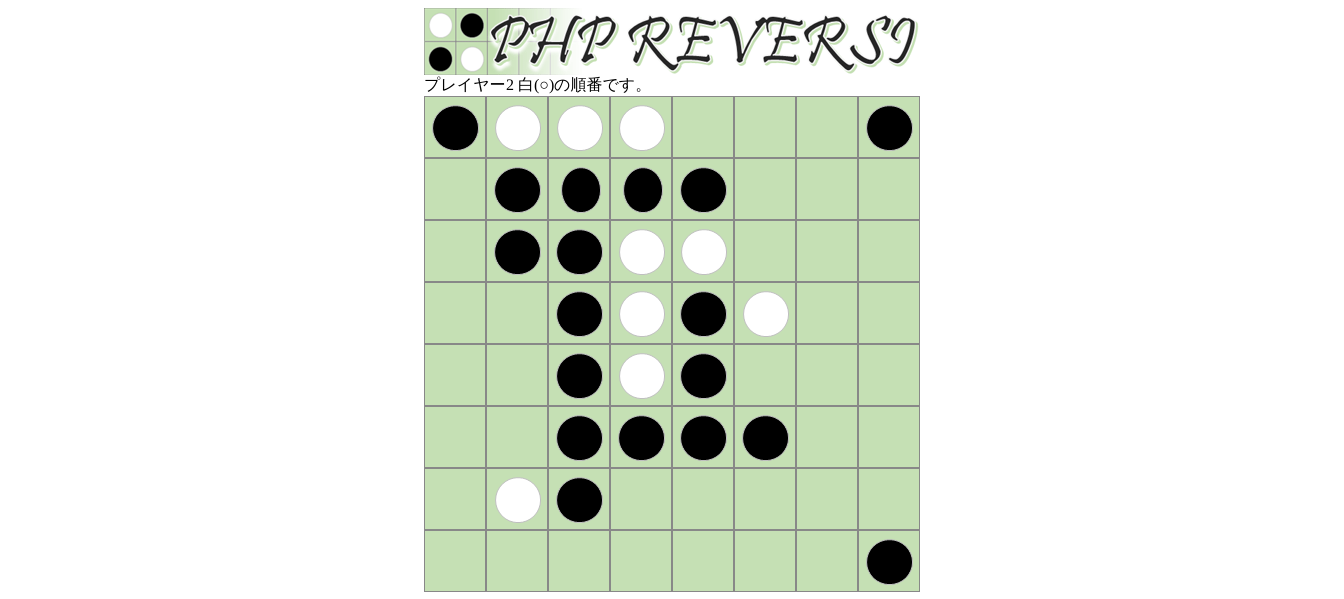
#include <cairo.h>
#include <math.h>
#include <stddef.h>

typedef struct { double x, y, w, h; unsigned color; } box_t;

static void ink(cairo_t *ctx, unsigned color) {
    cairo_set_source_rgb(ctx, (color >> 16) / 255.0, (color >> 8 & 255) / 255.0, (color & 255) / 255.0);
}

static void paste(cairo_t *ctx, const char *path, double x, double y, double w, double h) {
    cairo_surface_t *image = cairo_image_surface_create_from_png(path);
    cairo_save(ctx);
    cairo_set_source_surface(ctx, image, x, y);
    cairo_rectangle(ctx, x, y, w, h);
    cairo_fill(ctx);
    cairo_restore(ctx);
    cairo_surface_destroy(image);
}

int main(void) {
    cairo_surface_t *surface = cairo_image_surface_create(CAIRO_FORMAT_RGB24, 1344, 599);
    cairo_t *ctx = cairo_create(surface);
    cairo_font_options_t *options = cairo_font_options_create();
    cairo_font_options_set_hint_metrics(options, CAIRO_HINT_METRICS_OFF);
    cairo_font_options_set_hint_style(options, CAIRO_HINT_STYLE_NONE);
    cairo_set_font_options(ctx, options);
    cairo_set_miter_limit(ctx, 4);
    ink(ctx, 0xFFFFFF);
    cairo_paint(ctx);
    paste(ctx, "media/1.png", 424, 8, 495, 67);
    cairo_select_font_face(ctx, "WenQuanYi Zen Hei Medium", CAIRO_FONT_SLANT_NORMAL, CAIRO_FONT_WEIGHT_NORMAL);
    cairo_set_font_size(ctx, 16);
    ink(ctx, 0x000000);
    cairo_move_to(ctx, 424, 90);
    cairo_show_text(ctx, "プレイヤー");
    cairo_select_font_face(ctx, "Liberation Serif", CAIRO_FONT_SLANT_NORMAL, CAIRO_FONT_WEIGHT_NORMAL);
    cairo_move_to(ctx, 506, 90);
    cairo_show_text(ctx, "2");
    cairo_select_font_face(ctx, "WenQuanYi Zen Hei Medium", CAIRO_FONT_SLANT_NORMAL, CAIRO_FONT_WEIGHT_NORMAL);
    cairo_move_to(ctx, 518, 90);
    cairo_show_text(ctx, "白");
    cairo_select_font_face(ctx, "Liberation Serif", CAIRO_FONT_SLANT_NORMAL, CAIRO_FONT_WEIGHT_NORMAL);
    cairo_move_to(ctx, 534, 90);
    cairo_show_text(ctx, "(○)");
    cairo_select_font_face(ctx, "WenQuanYi Zen Hei Medium", CAIRO_FONT_SLANT_NORMAL, CAIRO_FONT_WEIGHT_NORMAL);
    cairo_move_to(ctx, 554, 90);
    cairo_show_text(ctx, "の順番です。");
    cairo_rectangle(ctx, 424.5, 96.5, 61, 61);
    ink(ctx, 0x888888);
    cairo_set_line_width(ctx, 1);
    cairo_stroke(ctx);
    cairo_rectangle(ctx, 486.5, 96.5, 61, 61);
    cairo_stroke(ctx);
    cairo_rectangle(ctx, 548.5, 96.5, 61, 61);
    cairo_stroke(ctx);
    cairo_rectangle(ctx, 610.5, 96.5, 61, 61);
    cairo_stroke(ctx);
    cairo_rectangle(ctx, 672.5, 96.5, 61, 61);
    cairo_stroke(ctx);
    cairo_rectangle(ctx, 734.5, 96.5, 61, 61);
    cairo_stroke(ctx);
    cairo_rectangle(ctx, 796.5, 96.5, 61, 61);
    cairo_stroke(ctx);
    cairo_rectangle(ctx, 858.5, 96.5, 61, 61);
    cairo_stroke(ctx);
    paste(ctx, "media/2.png", 425, 97, 60, 60);
    paste(ctx, "media/3.png", 487, 97, 60, 60);
    paste(ctx, "media/3.png", 549, 97, 60, 60);
    paste(ctx, "media/3.png", 611, 97, 60, 60);
    {
        static const box_t items[] = {
            {673, 97, 60, 60, 0xC5E0B4},
            {735, 97, 60, 60, 0xC5E0B4},
            {797, 97, 60, 60, 0xC5E0B4},
        };
        for (size_t i = 0; i < sizeof items / sizeof *items; i++) {
            ink(ctx, items[i].color);
            cairo_rectangle(ctx, items[i].x, items[i].y, items[i].w, items[i].h);
            cairo_fill(ctx);
        }
    }
    paste(ctx, "media/2.png", 859, 97, 60, 60);
    cairo_rectangle(ctx, 424.5, 158.5, 61, 61);
    ink(ctx, 0x888888);
    cairo_stroke(ctx);
    cairo_rectangle(ctx, 486.5, 158.5, 61, 61);
    cairo_stroke(ctx);
    cairo_rectangle(ctx, 548.5, 158.5, 61, 61);
    cairo_stroke(ctx);
    cairo_rectangle(ctx, 610.5, 158.5, 61, 61);
    cairo_stroke(ctx);
    cairo_rectangle(ctx, 672.5, 158.5, 61, 61);
    cairo_stroke(ctx);
    cairo_rectangle(ctx, 734.5, 158.5, 61, 61);
    cairo_stroke(ctx);
    cairo_rectangle(ctx, 796.5, 158.5, 61, 61);
    cairo_stroke(ctx);
    cairo_rectangle(ctx, 858.5, 158.5, 61, 61);
    cairo_stroke(ctx);
    ink(ctx, 0xC5E0B4);
    cairo_rectangle(ctx, 425, 159, 60, 60);
    cairo_fill(ctx);
    paste(ctx, "media/4.png", 487, 159, 60, 60);
    paste(ctx, "media/5.png", 549, 159, 60, 60);
    paste(ctx, "media/5.png", 611, 159, 60, 60);
    paste(ctx, "media/2.png", 673, 159, 60, 60);
    {
        static const box_t items[] = {
            {735, 159, 60, 60, 0xC5E0B4},
            {797, 159, 60, 60, 0xC5E0B4},
            {859, 159, 60, 60, 0xC5E0B4},
        };
        for (size_t i = 0; i < sizeof items / sizeof *items; i++) {
            ink(ctx, items[i].color);
            cairo_rectangle(ctx, items[i].x, items[i].y, items[i].w, items[i].h);
            cairo_fill(ctx);
        }
    }
    cairo_rectangle(ctx, 424.5, 220.5, 61, 61);
    ink(ctx, 0x888888);
    cairo_stroke(ctx);
    cairo_rectangle(ctx, 486.5, 220.5, 61, 61);
    cairo_stroke(ctx);
    cairo_rectangle(ctx, 548.5, 220.5, 61, 61);
    cairo_stroke(ctx);
    cairo_rectangle(ctx, 610.5, 220.5, 61, 61);
    cairo_stroke(ctx);
    cairo_rectangle(ctx, 672.5, 220.5, 61, 61);
    cairo_stroke(ctx);
    cairo_rectangle(ctx, 734.5, 220.5, 61, 61);
    cairo_stroke(ctx);
    cairo_rectangle(ctx, 796.5, 220.5, 61, 61);
    cairo_stroke(ctx);
    cairo_rectangle(ctx, 858.5, 220.5, 61, 61);
    cairo_stroke(ctx);
    ink(ctx, 0xC5E0B4);
    cairo_rectangle(ctx, 425, 221, 60, 60);
    cairo_fill(ctx);
    paste(ctx, "media/2.png", 487, 221, 60, 60);
    paste(ctx, "media/2.png", 549, 221, 60, 60);
    paste(ctx, "media/3.png", 611, 221, 60, 60);
    paste(ctx, "media/3.png", 673, 221, 60, 60);
    {
        static const box_t items[] = {
            {735, 221, 60, 60, 0xC5E0B4},
            {797, 221, 60, 60, 0xC5E0B4},
            {859, 221, 60, 60, 0xC5E0B4},
        };
        for (size_t i = 0; i < sizeof items / sizeof *items; i++) {
            ink(ctx, items[i].color);
            cairo_rectangle(ctx, items[i].x, items[i].y, items[i].w, items[i].h);
            cairo_fill(ctx);
        }
    }
    cairo_rectangle(ctx, 424.5, 282.5, 61, 61);
    ink(ctx, 0x888888);
    cairo_stroke(ctx);
    cairo_rectangle(ctx, 486.5, 282.5, 61, 61);
    cairo_stroke(ctx);
    cairo_rectangle(ctx, 548.5, 282.5, 61, 61);
    cairo_stroke(ctx);
    cairo_rectangle(ctx, 610.5, 282.5, 61, 61);
    cairo_stroke(ctx);
    cairo_rectangle(ctx, 672.5, 282.5, 61, 61);
    cairo_stroke(ctx);
    cairo_rectangle(ctx, 734.5, 282.5, 61, 61);
    cairo_stroke(ctx);
    cairo_rectangle(ctx, 796.5, 282.5, 61, 61);
    cairo_stroke(ctx);
    cairo_rectangle(ctx, 858.5, 282.5, 61, 61);
    cairo_stroke(ctx);
    ink(ctx, 0xC5E0B4);
    cairo_rectangle(ctx, 425, 283, 60, 60);
    cairo_fill(ctx);
    cairo_rectangle(ctx, 487, 283, 60, 60);
    cairo_fill(ctx);
    paste(ctx, "media/2.png", 549, 283, 60, 60);
    paste(ctx, "media/3.png", 611, 283, 60, 60);
    paste(ctx, "media/2.png", 673, 283, 60, 60);
    paste(ctx, "media/3.png", 735, 283, 60, 60);
    cairo_rectangle(ctx, 797, 283, 60, 60);
    cairo_fill(ctx);
    cairo_rectangle(ctx, 859, 283, 60, 60);
    cairo_fill(ctx);
    cairo_rectangle(ctx, 424.5, 344.5, 61, 61);
    ink(ctx, 0x888888);
    cairo_stroke(ctx);
    cairo_rectangle(ctx, 486.5, 344.5, 61, 61);
    cairo_stroke(ctx);
    cairo_rectangle(ctx, 548.5, 344.5, 61, 61);
    cairo_stroke(ctx);
    cairo_rectangle(ctx, 610.5, 344.5, 61, 61);
    cairo_stroke(ctx);
    cairo_rectangle(ctx, 672.5, 344.5, 61, 61);
    cairo_stroke(ctx);
    cairo_rectangle(ctx, 734.5, 344.5, 61, 61);
    cairo_stroke(ctx);
    cairo_rectangle(ctx, 796.5, 344.5, 61, 61);
    cairo_stroke(ctx);
    cairo_rectangle(ctx, 858.5, 344.5, 61, 61);
    cairo_stroke(ctx);
    ink(ctx, 0xC5E0B4);
    cairo_rectangle(ctx, 425, 345, 60, 60);
    cairo_fill(ctx);
    cairo_rectangle(ctx, 487, 345, 60, 60);
    cairo_fill(ctx);
    paste(ctx, "media/2.png", 549, 345, 60, 60);
    paste(ctx, "media/3.png", 611, 345, 60, 60);
    paste(ctx, "media/2.png", 673, 345, 60, 60);
    {
        static const box_t items[] = {
            {735, 345, 60, 60, 0xC5E0B4},
            {797, 345, 60, 60, 0xC5E0B4},
            {859, 345, 60, 60, 0xC5E0B4},
        };
        for (size_t i = 0; i < sizeof items / sizeof *items; i++) {
            ink(ctx, items[i].color);
            cairo_rectangle(ctx, items[i].x, items[i].y, items[i].w, items[i].h);
            cairo_fill(ctx);
        }
    }
    cairo_rectangle(ctx, 424.5, 406.5, 61, 61);
    ink(ctx, 0x888888);
    cairo_stroke(ctx);
    cairo_rectangle(ctx, 486.5, 406.5, 61, 61);
    cairo_stroke(ctx);
    cairo_rectangle(ctx, 548.5, 406.5, 61, 61);
    cairo_stroke(ctx);
    cairo_rectangle(ctx, 610.5, 406.5, 61, 61);
    cairo_stroke(ctx);
    cairo_rectangle(ctx, 672.5, 406.5, 61, 61);
    cairo_stroke(ctx);
    cairo_rectangle(ctx, 734.5, 406.5, 61, 61);
    cairo_stroke(ctx);
    cairo_rectangle(ctx, 796.5, 406.5, 61, 61);
    cairo_stroke(ctx);
    cairo_rectangle(ctx, 858.5, 406.5, 61, 61);
    cairo_stroke(ctx);
    ink(ctx, 0xC5E0B4);
    cairo_rectangle(ctx, 425, 407, 60, 60);
    cairo_fill(ctx);
    cairo_rectangle(ctx, 487, 407, 60, 60);
    cairo_fill(ctx);
    paste(ctx, "media/2.png", 549, 407, 60, 60);
    paste(ctx, "media/2.png", 611, 407, 60, 60);
    paste(ctx, "media/2.png", 673, 407, 60, 60);
    paste(ctx, "media/2.png", 735, 407, 60, 60);
    cairo_rectangle(ctx, 797, 407, 60, 60);
    cairo_fill(ctx);
    cairo_rectangle(ctx, 859, 407, 60, 60);
    cairo_fill(ctx);
    cairo_rectangle(ctx, 424.5, 468.5, 61, 61);
    ink(ctx, 0x888888);
    cairo_stroke(ctx);
    cairo_rectangle(ctx, 486.5, 468.5, 61, 61);
    cairo_stroke(ctx);
    cairo_rectangle(ctx, 548.5, 468.5, 61, 61);
    cairo_stroke(ctx);
    cairo_rectangle(ctx, 610.5, 468.5, 61, 61);
    cairo_stroke(ctx);
    cairo_rectangle(ctx, 672.5, 468.5, 61, 61);
    cairo_stroke(ctx);
    cairo_rectangle(ctx, 734.5, 468.5, 61, 61);
    cairo_stroke(ctx);
    cairo_rectangle(ctx, 796.5, 468.5, 61, 61);
    cairo_stroke(ctx);
    cairo_rectangle(ctx, 858.5, 468.5, 61, 61);
    cairo_stroke(ctx);
    ink(ctx, 0xC5E0B4);
    cairo_rectangle(ctx, 425, 469, 60, 60);
    cairo_fill(ctx);
    paste(ctx, "media/3.png", 487, 469, 60, 60);
    paste(ctx, "media/2.png", 549, 469, 60, 60);
    {
        static const box_t items[] = {
            {611, 469, 60, 60, 0xC5E0B4},
            {673, 469, 60, 60, 0xC5E0B4},
            {735, 469, 60, 60, 0xC5E0B4},
            {797, 469, 60, 60, 0xC5E0B4},
            {859, 469, 60, 60, 0xC5E0B4},
        };
        for (size_t i = 0; i < sizeof items / sizeof *items; i++) {
            ink(ctx, items[i].color);
            cairo_rectangle(ctx, items[i].x, items[i].y, items[i].w, items[i].h);
            cairo_fill(ctx);
        }
    }
    cairo_rectangle(ctx, 424.5, 530.5, 61, 61);
    ink(ctx, 0x888888);
    cairo_stroke(ctx);
    cairo_rectangle(ctx, 486.5, 530.5, 61, 61);
    cairo_stroke(ctx);
    cairo_rectangle(ctx, 548.5, 530.5, 61, 61);
    cairo_stroke(ctx);
    cairo_rectangle(ctx, 610.5, 530.5, 61, 61);
    cairo_stroke(ctx);
    cairo_rectangle(ctx, 672.5, 530.5, 61, 61);
    cairo_stroke(ctx);
    cairo_rectangle(ctx, 734.5, 530.5, 61, 61);
    cairo_stroke(ctx);
    cairo_rectangle(ctx, 796.5, 530.5, 61, 61);
    cairo_stroke(ctx);
    cairo_rectangle(ctx, 858.5, 530.5, 61, 61);
    cairo_stroke(ctx);
    {
        static const box_t items[] = {
            {425, 531, 60, 60, 0xC5E0B4},
            {487, 531, 60, 60, 0xC5E0B4},
            {549, 531, 60, 60, 0xC5E0B4},
            {611, 531, 60, 60, 0xC5E0B4},
            {673, 531, 60, 60, 0xC5E0B4},
            {735, 531, 60, 60, 0xC5E0B4},
            {797, 531, 60, 60, 0xC5E0B4},
        };
        for (size_t i = 0; i < sizeof items / sizeof *items; i++) {
            ink(ctx, items[i].color);
            cairo_rectangle(ctx, items[i].x, items[i].y, items[i].w, items[i].h);
            cairo_fill(ctx);
        }
    }
    paste(ctx, "media/2.png", 859, 531, 60, 60);
    cairo_surface_write_to_png(surface, "image.png");
    cairo_font_options_destroy(options);
    cairo_destroy(ctx);
    cairo_surface_destroy(surface);
    return 0;
}
